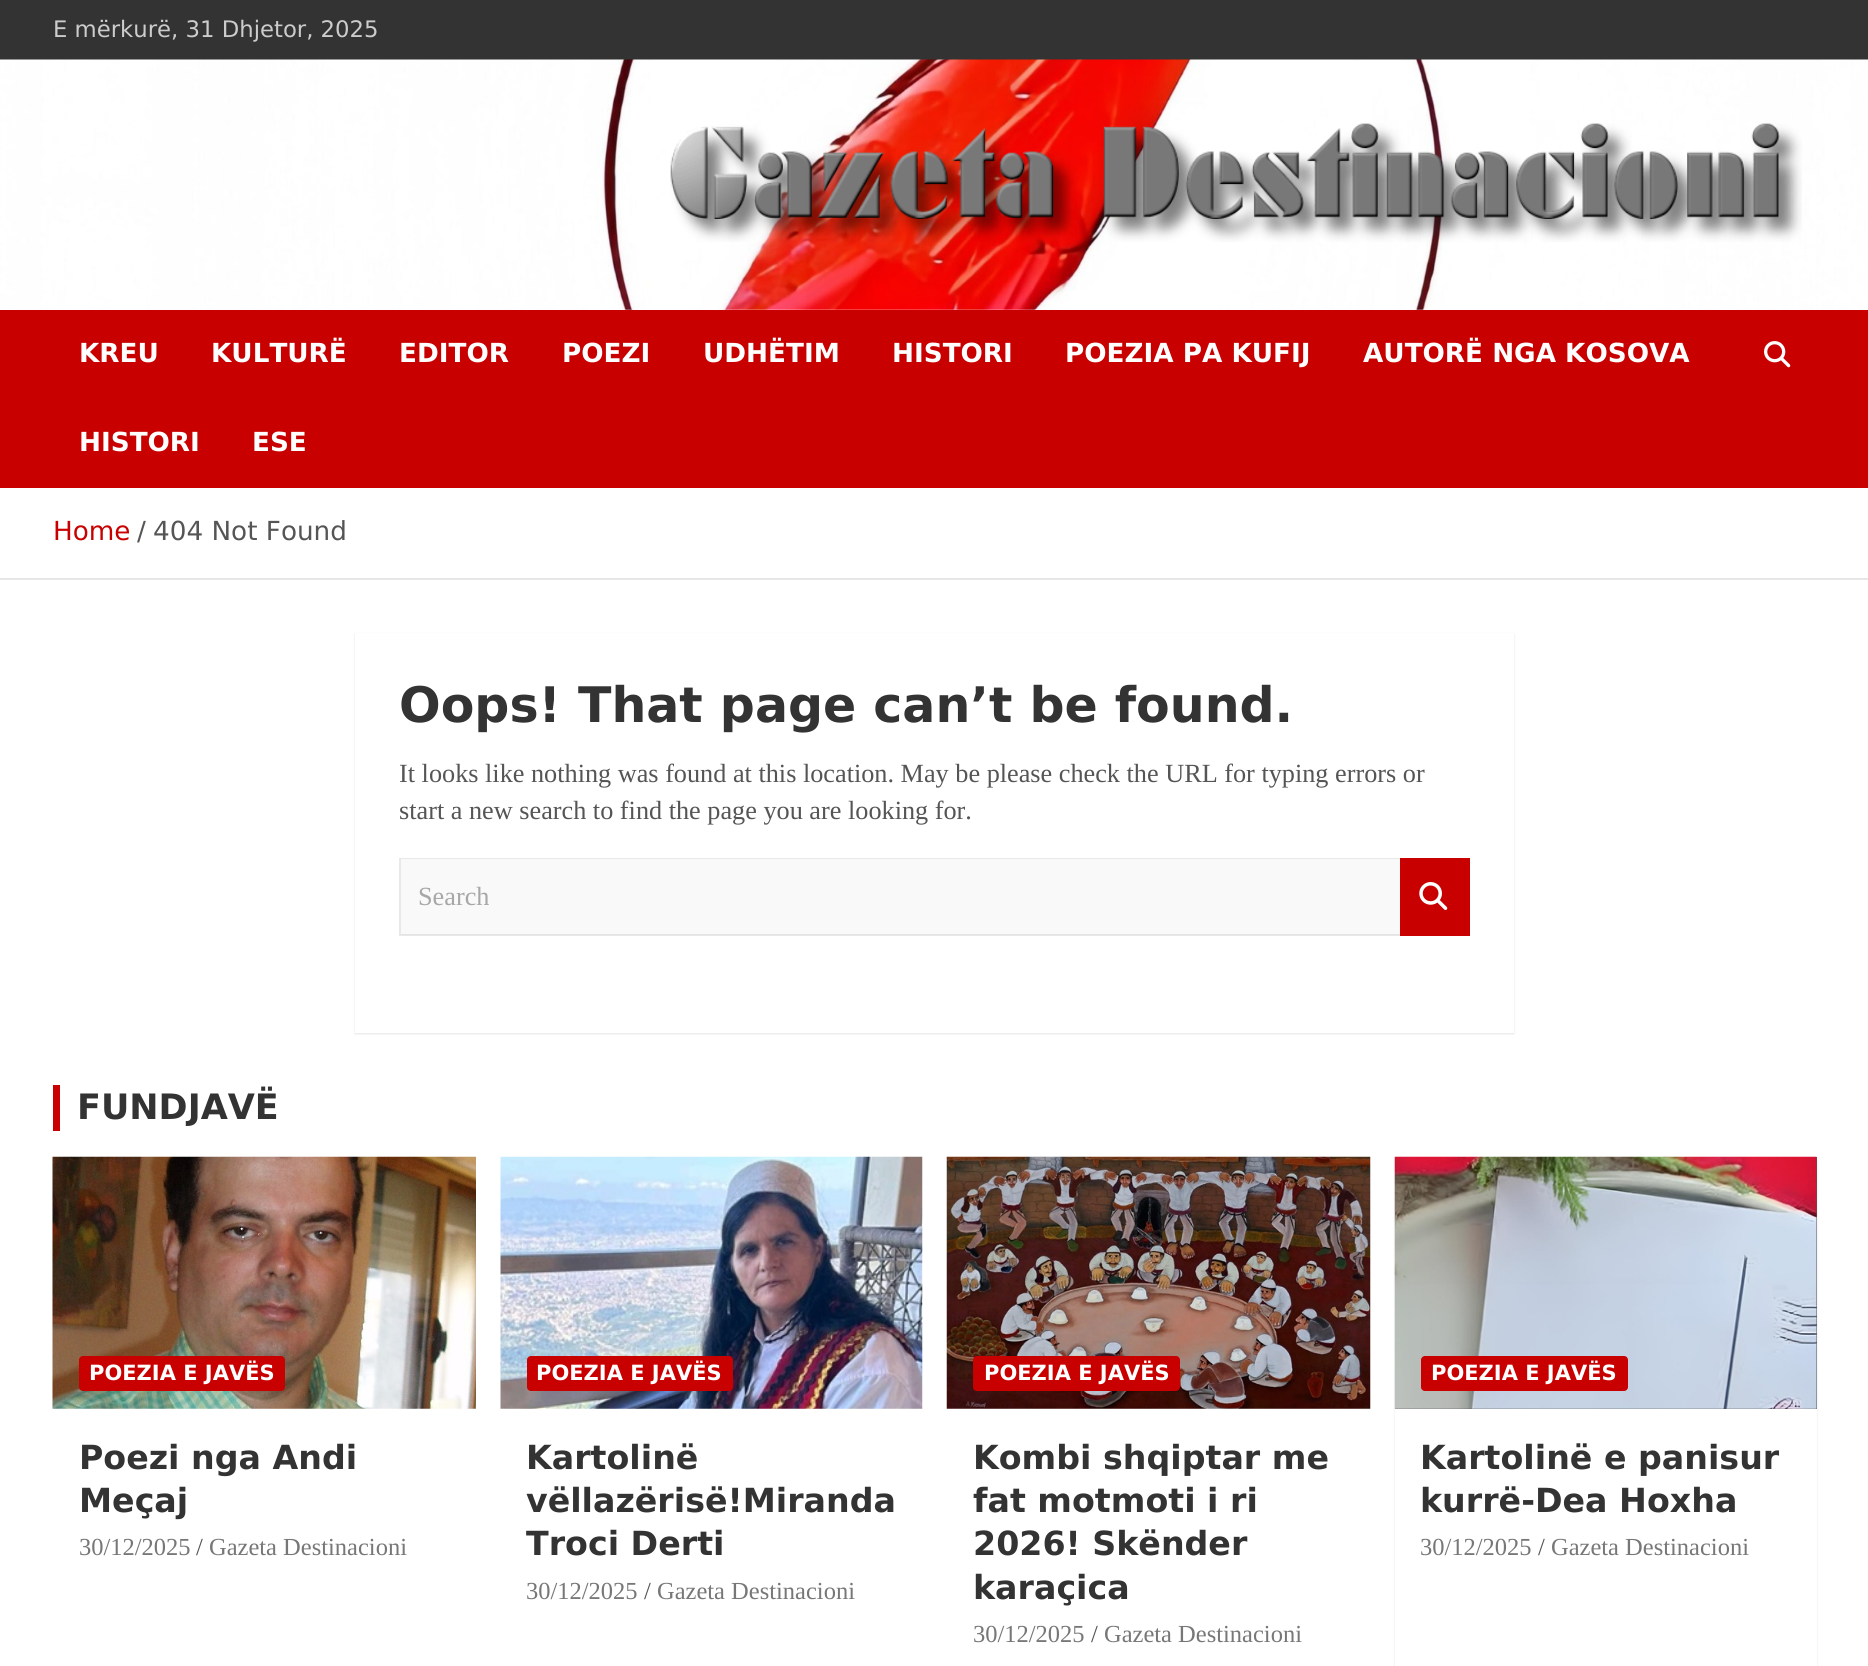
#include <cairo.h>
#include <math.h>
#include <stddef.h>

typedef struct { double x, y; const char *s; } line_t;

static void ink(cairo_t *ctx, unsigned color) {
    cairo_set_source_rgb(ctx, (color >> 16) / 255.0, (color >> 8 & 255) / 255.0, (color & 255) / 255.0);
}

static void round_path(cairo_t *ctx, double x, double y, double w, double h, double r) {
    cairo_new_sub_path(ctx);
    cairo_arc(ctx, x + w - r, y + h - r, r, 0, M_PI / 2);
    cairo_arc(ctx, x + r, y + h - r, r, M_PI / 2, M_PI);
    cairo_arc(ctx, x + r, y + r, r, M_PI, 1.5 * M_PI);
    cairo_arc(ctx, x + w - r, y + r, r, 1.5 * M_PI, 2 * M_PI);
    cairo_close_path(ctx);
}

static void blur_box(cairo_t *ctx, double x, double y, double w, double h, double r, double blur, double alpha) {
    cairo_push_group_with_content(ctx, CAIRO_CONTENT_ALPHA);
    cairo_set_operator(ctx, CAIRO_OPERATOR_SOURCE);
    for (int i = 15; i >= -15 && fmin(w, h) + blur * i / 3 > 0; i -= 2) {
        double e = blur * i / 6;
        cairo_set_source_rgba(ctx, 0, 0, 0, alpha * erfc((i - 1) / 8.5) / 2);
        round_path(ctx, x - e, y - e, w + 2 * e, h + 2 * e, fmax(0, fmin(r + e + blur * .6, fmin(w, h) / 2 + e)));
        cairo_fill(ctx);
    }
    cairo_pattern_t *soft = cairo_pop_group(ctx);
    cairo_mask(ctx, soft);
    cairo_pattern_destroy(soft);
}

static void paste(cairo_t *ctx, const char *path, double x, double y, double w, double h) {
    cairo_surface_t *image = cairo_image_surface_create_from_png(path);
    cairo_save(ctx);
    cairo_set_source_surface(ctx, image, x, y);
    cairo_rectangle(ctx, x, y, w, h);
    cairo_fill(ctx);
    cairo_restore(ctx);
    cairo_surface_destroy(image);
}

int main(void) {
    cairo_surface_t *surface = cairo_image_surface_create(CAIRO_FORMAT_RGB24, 1868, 1666);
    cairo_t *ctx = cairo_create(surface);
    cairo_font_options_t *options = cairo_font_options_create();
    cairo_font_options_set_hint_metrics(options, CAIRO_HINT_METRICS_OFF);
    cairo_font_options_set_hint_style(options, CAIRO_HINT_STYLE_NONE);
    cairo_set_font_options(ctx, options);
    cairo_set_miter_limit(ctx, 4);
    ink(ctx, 0xFFFFFF);
    cairo_paint(ctx);
    ink(ctx, 0x333333);
    cairo_rectangle(ctx, 0, 0, 1868, 60);
    cairo_fill(ctx);
    cairo_select_font_face(ctx, "DejaVu Sans", CAIRO_FONT_SLANT_NORMAL, CAIRO_FONT_WEIGHT_NORMAL);
    cairo_set_font_size(ctx, 22.75);
    ink(ctx, 0xCCCCCC);
    cairo_move_to(ctx, 53, 37);
    cairo_show_text(ctx, "E mërkurë, 31 Dhjetor, 2025");
    paste(ctx, "media/1.png", 0, 59, 1868, 251);
    paste(ctx, "media/2.png", 670, 123, 1132, 119);
    ink(ctx, 0xC80000);
    cairo_rectangle(ctx, 0, 310, 1868, 178);
    cairo_fill(ctx);
    cairo_select_font_face(ctx, "DejaVu Sans", CAIRO_FONT_SLANT_NORMAL, CAIRO_FONT_WEIGHT_BOLD);
    cairo_set_font_size(ctx, 26.25);
    ink(ctx, 0xFFFFFF);
    {
        static const line_t items[] = {
            {79, 362, "KREU"},
            {211, 362, "KULTURË"},
            {399, 362, "EDITOR"},
            {562, 362, "POEZI"},
            {703, 362, "UDHËTIM"},
            {892, 362, "HISTORI"},
            {1065, 362, "POEZIA PA KUFIJ"},
            {1363, 362, "AUTORË NGA KOSOVA"},
            {79, 451, "HISTORI"},
            {252, 451, "ESE"},
        };
        for (size_t i = 0; i < sizeof items / sizeof *items; i++) {
            cairo_move_to(ctx, items[i].x, items[i].y);
            cairo_show_text(ctx, items[i].s);
        }
    }
    paste(ctx, "media/3.png", 1764, 341, 27, 27);
    ink(ctx, 0xE6E6E6);
    cairo_rectangle(ctx, 0, 578, 1868, 2);
    cairo_fill(ctx);
    cairo_select_font_face(ctx, "DejaVu Sans", CAIRO_FONT_SLANT_NORMAL, CAIRO_FONT_WEIGHT_NORMAL);
    ink(ctx, 0xC80000);
    cairo_move_to(ctx, 53, 540);
    cairo_show_text(ctx, "Home");
    ink(ctx, 0x555555);
    cairo_move_to(ctx, 137, 540);
    cairo_show_text(ctx, "/");
    cairo_move_to(ctx, 153, 540);
    cairo_show_text(ctx, "404 Not Found");
    ink(ctx, 0x000000);
    blur_box(ctx, 355, 634, 1159, 400, 0, 1, 0.1);
    ink(ctx, 0xFFFFFF);
    cairo_rectangle(ctx, 355, 633, 1159, 400);
    cairo_fill(ctx);
    cairo_select_font_face(ctx, "DejaVu Sans", CAIRO_FONT_SLANT_NORMAL, CAIRO_FONT_WEIGHT_BOLD);
    cairo_set_font_size(ctx, 49);
    ink(ctx, 0x333333);
    cairo_move_to(ctx, 399, 722);
    cairo_show_text(ctx, "Oops! That page can’t be found.");
    cairo_select_font_face(ctx, "Liberation Serif", CAIRO_FONT_SLANT_NORMAL, CAIRO_FONT_WEIGHT_NORMAL);
    cairo_set_font_size(ctx, 26.25);
    ink(ctx, 0x555555);
    cairo_move_to(ctx, 399, 782);
    cairo_show_text(ctx, "It looks like nothing was found at this location. May be please check the URL for typing errors or");
    cairo_move_to(ctx, 399, 819);
    cairo_show_text(ctx, "start a new search to find the page you are looking for.");
    ink(ctx, 0xF9F9F9);
    cairo_rectangle(ctx, 401, 859, 999, 76);
    cairo_fill(ctx);
    ink(ctx, 0xE8E8E8);
    cairo_new_path(ctx);
    cairo_move_to(ctx, 399, 858);
    cairo_line_to(ctx, 1400, 858);
    cairo_line_to(ctx, 1400, 859);
    cairo_line_to(ctx, 401, 859);
    cairo_close_path(ctx);
    cairo_fill(ctx);
    cairo_set_source_rgba(ctx, 0, 0, 0, 0.09);
    cairo_new_path(ctx);
    cairo_move_to(ctx, 1400, 936);
    cairo_line_to(ctx, 399, 936);
    cairo_line_to(ctx, 401, 934);
    cairo_line_to(ctx, 1400, 934);
    cairo_close_path(ctx);
    cairo_fill(ctx);
    cairo_new_path(ctx);
    cairo_move_to(ctx, 399, 936);
    cairo_line_to(ctx, 399, 858);
    cairo_line_to(ctx, 401, 859);
    cairo_line_to(ctx, 401, 934);
    cairo_close_path(ctx);
    cairo_fill(ctx);
    ink(ctx, 0xA7A7A7);
    cairo_move_to(ctx, 418, 905);
    cairo_show_text(ctx, "Search");
    ink(ctx, 0xC80000);
    cairo_rectangle(ctx, 1400, 858, 70, 78);
    cairo_fill(ctx);
    paste(ctx, "media/4.png", 1419, 882, 29, 28);
    cairo_rectangle(ctx, 53, 1085, 7, 46);
    cairo_fill(ctx);
    cairo_select_font_face(ctx, "DejaVu Sans", CAIRO_FONT_SLANT_NORMAL, CAIRO_FONT_WEIGHT_BOLD);
    cairo_set_font_size(ctx, 35);
    ink(ctx, 0x333333);
    cairo_move_to(ctx, 77, 1119);
    cairo_show_text(ctx, "FUNDJAVË");
    paste(ctx, "media/5.png", 52, 1156, 424, 253);
    ink(ctx, 0xC80000);
    round_path(ctx, 79, 1356, 206, 35, 4);
    cairo_fill(ctx);
    cairo_set_font_size(ctx, 21);
    ink(ctx, 0xFFFFFF);
    cairo_move_to(ctx, 89, 1380);
    cairo_show_text(ctx, "POEZIA E JAVËS");
    cairo_set_font_size(ctx, 33.25);
    ink(ctx, 0x333333);
    cairo_move_to(ctx, 79, 1469);
    cairo_show_text(ctx, "Poezi nga Andi");
    cairo_move_to(ctx, 79, 1512);
    cairo_show_text(ctx, "Meçaj");
    cairo_select_font_face(ctx, "Liberation Serif", CAIRO_FONT_SLANT_NORMAL, CAIRO_FONT_WEIGHT_NORMAL);
    cairo_set_font_size(ctx, 24.5);
    ink(ctx, 0x777777);
    cairo_move_to(ctx, 79, 1555);
    cairo_show_text(ctx, "30/12/2025");
    ink(ctx, 0x555555);
    cairo_move_to(ctx, 196, 1555);
    cairo_show_text(ctx, "/");
    ink(ctx, 0x777777);
    cairo_move_to(ctx, 209, 1555);
    cairo_show_text(ctx, "Gazeta Destinacioni");
    paste(ctx, "media/6.png", 500, 1156, 423, 253);
    ink(ctx, 0xC80000);
    round_path(ctx, 527, 1356, 206, 35, 4);
    cairo_fill(ctx);
    cairo_select_font_face(ctx, "DejaVu Sans", CAIRO_FONT_SLANT_NORMAL, CAIRO_FONT_WEIGHT_BOLD);
    cairo_set_font_size(ctx, 21);
    ink(ctx, 0xFFFFFF);
    cairo_move_to(ctx, 536, 1380);
    cairo_show_text(ctx, "POEZIA E JAVËS");
    cairo_set_font_size(ctx, 33.25);
    ink(ctx, 0x333333);
    {
        static const line_t items[] = {
            {526, 1469, "Kartolinë"},
            {526, 1512, "vëllazërisë!Miranda"},
            {526, 1555, "Troci Derti"},
        };
        for (size_t i = 0; i < sizeof items / sizeof *items; i++) {
            cairo_move_to(ctx, items[i].x, items[i].y);
            cairo_show_text(ctx, items[i].s);
        }
    }
    cairo_select_font_face(ctx, "Liberation Serif", CAIRO_FONT_SLANT_NORMAL, CAIRO_FONT_WEIGHT_NORMAL);
    cairo_set_font_size(ctx, 24.5);
    ink(ctx, 0x777777);
    cairo_move_to(ctx, 526, 1599);
    cairo_show_text(ctx, "30/12/2025");
    ink(ctx, 0x555555);
    cairo_move_to(ctx, 644, 1599);
    cairo_show_text(ctx, "/");
    ink(ctx, 0x777777);
    cairo_move_to(ctx, 657, 1599);
    cairo_show_text(ctx, "Gazeta Destinacioni");
    paste(ctx, "media/7.png", 946, 1156, 425, 253);
    ink(ctx, 0xC80000);
    round_path(ctx, 973, 1356, 207, 35, 4);
    cairo_fill(ctx);
    cairo_select_font_face(ctx, "DejaVu Sans", CAIRO_FONT_SLANT_NORMAL, CAIRO_FONT_WEIGHT_BOLD);
    cairo_set_font_size(ctx, 21);
    ink(ctx, 0xFFFFFF);
    cairo_move_to(ctx, 984, 1380);
    cairo_show_text(ctx, "POEZIA E JAVËS");
    cairo_set_font_size(ctx, 33.25);
    ink(ctx, 0x333333);
    {
        static const line_t items[] = {
            {973, 1469, "Kombi shqiptar me"},
            {973, 1512, "fat motmoti i ri"},
            {973, 1555, "2026! Skënder"},
            {973, 1599, "karaçica"},
        };
        for (size_t i = 0; i < sizeof items / sizeof *items; i++) {
            cairo_move_to(ctx, items[i].x, items[i].y);
            cairo_show_text(ctx, items[i].s);
        }
    }
    cairo_select_font_face(ctx, "Liberation Serif", CAIRO_FONT_SLANT_NORMAL, CAIRO_FONT_WEIGHT_NORMAL);
    cairo_set_font_size(ctx, 24.5);
    ink(ctx, 0x777777);
    cairo_move_to(ctx, 973, 1642);
    cairo_show_text(ctx, "30/12/2025");
    ink(ctx, 0x555555);
    cairo_move_to(ctx, 1091, 1642);
    cairo_show_text(ctx, "/");
    ink(ctx, 0x777777);
    cairo_move_to(ctx, 1104, 1642);
    cairo_show_text(ctx, "Gazeta Destinacioni");
    ink(ctx, 0x000000);
    blur_box(ctx, 1395, 1159, 422, 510, 0, 1, 0.1);
    ink(ctx, 0xFFFFFF);
    cairo_rectangle(ctx, 1395, 1409, 422, 257);
    cairo_fill(ctx);
    ink(ctx, 0x555555);
    cairo_rectangle(ctx, 1395, 1157, 422, 252);
    cairo_fill(ctx);
    paste(ctx, "media/8.png", 1394, 1156, 423, 253);
    ink(ctx, 0xC80000);
    round_path(ctx, 1421, 1356, 207, 35, 4);
    cairo_fill(ctx);
    cairo_select_font_face(ctx, "DejaVu Sans", CAIRO_FONT_SLANT_NORMAL, CAIRO_FONT_WEIGHT_BOLD);
    cairo_set_font_size(ctx, 21);
    ink(ctx, 0xFFFFFF);
    cairo_move_to(ctx, 1431, 1380);
    cairo_show_text(ctx, "POEZIA E JAVËS");
    cairo_set_font_size(ctx, 33.25);
    ink(ctx, 0x333333);
    cairo_move_to(ctx, 1420, 1469);
    cairo_show_text(ctx, "Kartolinë e panisur");
    cairo_move_to(ctx, 1420, 1512);
    cairo_show_text(ctx, "kurrë-Dea Hoxha");
    cairo_select_font_face(ctx, "Liberation Serif", CAIRO_FONT_SLANT_NORMAL, CAIRO_FONT_WEIGHT_NORMAL);
    cairo_set_font_size(ctx, 24.5);
    ink(ctx, 0x777777);
    cairo_move_to(ctx, 1420, 1555);
    cairo_show_text(ctx, "30/12/2025");
    ink(ctx, 0x555555);
    cairo_move_to(ctx, 1538, 1555);
    cairo_show_text(ctx, "/");
    ink(ctx, 0x777777);
    cairo_move_to(ctx, 1551, 1555);
    cairo_show_text(ctx, "Gazeta Destinacioni");
    cairo_surface_write_to_png(surface, "image.png");
    cairo_font_options_destroy(options);
    cairo_destroy(ctx);
    cairo_surface_destroy(surface);
    return 0;
}
